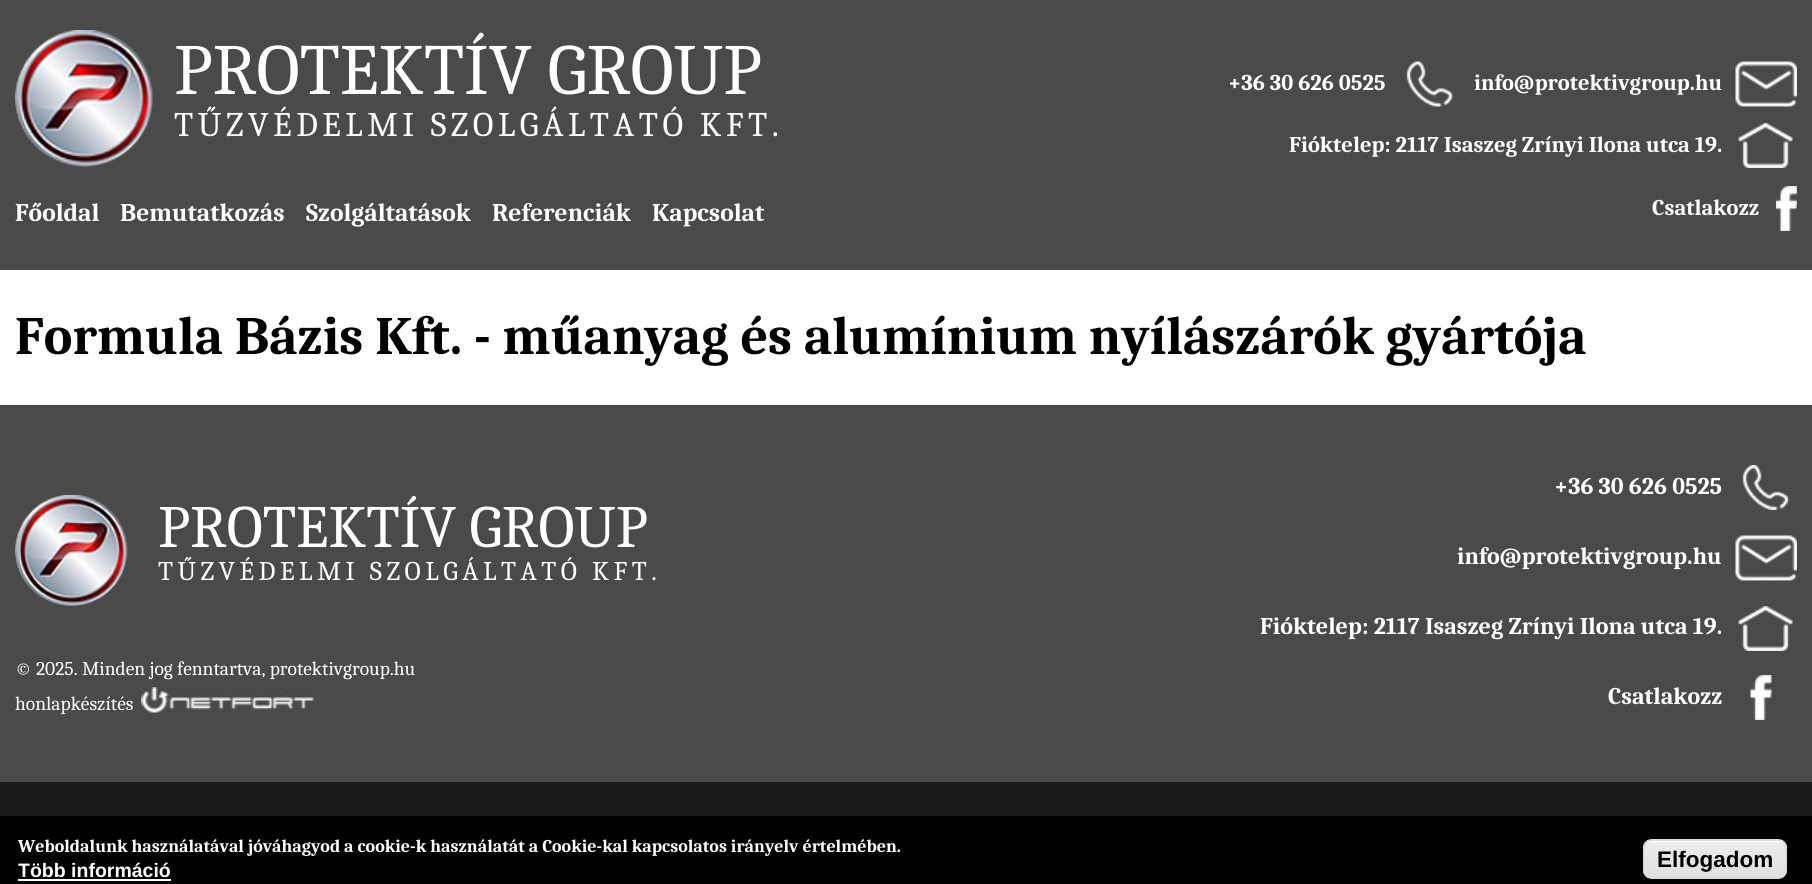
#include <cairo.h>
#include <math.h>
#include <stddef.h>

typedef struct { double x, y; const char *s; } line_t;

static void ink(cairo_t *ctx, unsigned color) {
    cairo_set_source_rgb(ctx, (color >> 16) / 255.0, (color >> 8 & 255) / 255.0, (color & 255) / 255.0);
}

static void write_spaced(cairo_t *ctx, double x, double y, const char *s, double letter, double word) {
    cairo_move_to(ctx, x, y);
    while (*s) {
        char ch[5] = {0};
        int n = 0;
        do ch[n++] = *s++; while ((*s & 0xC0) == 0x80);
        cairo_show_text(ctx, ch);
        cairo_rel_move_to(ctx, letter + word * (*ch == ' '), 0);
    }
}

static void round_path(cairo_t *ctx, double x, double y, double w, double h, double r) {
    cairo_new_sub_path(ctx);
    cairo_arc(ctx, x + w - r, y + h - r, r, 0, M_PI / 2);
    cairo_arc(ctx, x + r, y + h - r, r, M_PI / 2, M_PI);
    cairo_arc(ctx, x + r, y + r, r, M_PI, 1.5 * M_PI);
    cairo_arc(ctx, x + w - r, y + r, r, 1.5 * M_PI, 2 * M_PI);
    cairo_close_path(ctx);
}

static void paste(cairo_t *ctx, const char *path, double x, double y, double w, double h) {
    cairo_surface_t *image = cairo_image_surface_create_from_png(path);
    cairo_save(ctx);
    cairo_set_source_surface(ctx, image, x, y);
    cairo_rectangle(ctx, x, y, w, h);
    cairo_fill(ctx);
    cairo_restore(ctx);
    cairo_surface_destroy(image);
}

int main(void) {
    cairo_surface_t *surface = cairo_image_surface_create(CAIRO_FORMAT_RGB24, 1812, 884);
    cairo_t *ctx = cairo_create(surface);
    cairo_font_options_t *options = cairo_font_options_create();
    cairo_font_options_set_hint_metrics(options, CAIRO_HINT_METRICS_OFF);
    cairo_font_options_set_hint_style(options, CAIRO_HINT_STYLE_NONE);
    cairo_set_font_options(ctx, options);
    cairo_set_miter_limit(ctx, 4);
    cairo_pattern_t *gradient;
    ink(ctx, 0x1B1B1B);
    cairo_paint(ctx);
    ink(ctx, 0x4A4A4A);
    cairo_rectangle(ctx, 0, 0, 1812, 270);
    cairo_fill(ctx);
    paste(ctx, "media/1.png", 15, 30, 138, 137);
    cairo_select_font_face(ctx, "Caladea", CAIRO_FONT_SLANT_NORMAL, CAIRO_FONT_WEIGHT_NORMAL);
    cairo_set_font_size(ctx, 72);
    ink(ctx, 0xFFFFFF);
    cairo_move_to(ctx, 174, 94);
    cairo_show_text(ctx, "PROTEKTÍV GROUP");
    cairo_set_font_size(ctx, 34.5);
    write_spaced(ctx, 174, 136, "TŰZVÉDELMI SZOLGÁLTATÓ KFT.", 4.5, 0);
    cairo_select_font_face(ctx, "Caladea", CAIRO_FONT_SLANT_NORMAL, CAIRO_FONT_WEIGHT_BOLD);
    cairo_set_font_size(ctx, 25.5);
    {
        static const line_t items[] = {
            {15, 221, "Főoldal"},
            {120, 221, "Bemutatkozás"},
            {306, 221, "Szolgáltatások"},
            {492, 221, "Referenciák"},
            {652, 221, "Kapcsolat"},
        };
        for (size_t i = 0; i < sizeof items / sizeof *items; i++) {
            cairo_move_to(ctx, items[i].x, items[i].y);
            cairo_show_text(ctx, items[i].s);
        }
    }
    paste(ctx, "media/2.png", 1406, 61, 47, 46);
    cairo_set_font_size(ctx, 22.5);
    cairo_move_to(ctx, 1228, 90);
    cairo_show_text(ctx, "+36 30 626 0525");
    paste(ctx, "media/3.png", 1735, 61, 62, 46);
    cairo_move_to(ctx, 1474, 90);
    cairo_show_text(ctx, "info@protektivgroup.hu");
    paste(ctx, "media/4.png", 1738, 123, 55, 45);
    cairo_move_to(ctx, 1289, 152);
    cairo_show_text(ctx, "Fióktelep: 2117 Isaszeg Zrínyi Ilona utca 19.");
    paste(ctx, "media/5.png", 1776, 186, 21, 45);
    cairo_move_to(ctx, 1652, 215);
    cairo_show_text(ctx, "Csatlakozz");
    cairo_rectangle(ctx, 0, 270, 1812, 135);
    cairo_fill(ctx);
    cairo_set_font_size(ctx, 54);
    ink(ctx, 0x000000);
    cairo_move_to(ctx, 15, 354);
    cairo_show_text(ctx, "Formula Bázis Kft. - műanyag és alumínium nyílászárók gyártója");
    ink(ctx, 0x4A4A4A);
    cairo_rectangle(ctx, 0, 405, 1812, 377);
    cairo_fill(ctx);
    paste(ctx, "media/6.png", 15, 495, 113, 111);
    cairo_select_font_face(ctx, "Caladea", CAIRO_FONT_SLANT_NORMAL, CAIRO_FONT_WEIGHT_NORMAL);
    cairo_set_font_size(ctx, 60);
    ink(ctx, 0xFFFFFF);
    cairo_move_to(ctx, 158, 547);
    cairo_show_text(ctx, "PROTEKTÍV GROUP");
    cairo_set_font_size(ctx, 27);
    write_spaced(ctx, 158, 580, "TŰZVÉDELMI SZOLGÁLTATÓ KFT.", 4.5, 0);
    paste(ctx, "media/7.png", 1742, 465, 47, 45);
    cairo_select_font_face(ctx, "Caladea", CAIRO_FONT_SLANT_NORMAL, CAIRO_FONT_WEIGHT_BOLD);
    cairo_set_font_size(ctx, 24);
    cairo_move_to(ctx, 1554, 494);
    cairo_show_text(ctx, "+36 30 626 0525");
    paste(ctx, "media/3.png", 1735, 535, 62, 46);
    cairo_move_to(ctx, 1457, 564);
    cairo_show_text(ctx, "info@protektivgroup.hu");
    paste(ctx, "media/4.png", 1738, 606, 55, 45);
    cairo_move_to(ctx, 1260, 634);
    cairo_show_text(ctx, "Fióktelep: 2117 Isaszeg Zrínyi Ilona utca 19.");
    paste(ctx, "media/8.png", 1750, 675, 22, 45);
    cairo_move_to(ctx, 1608, 704);
    cairo_show_text(ctx, "Csatlakozz");
    cairo_select_font_face(ctx, "Caladea", CAIRO_FONT_SLANT_NORMAL, CAIRO_FONT_WEIGHT_NORMAL);
    cairo_set_font_size(ctx, 19.5);
    cairo_move_to(ctx, 15, 675);
    cairo_show_text(ctx, "© 2025. Minden jog fenntartva, protektivgroup.hu");
    cairo_move_to(ctx, 15, 710);
    cairo_show_text(ctx, "honlapkészítés");
    paste(ctx, "media/9.png", 141, 687, 173, 26);
    ink(ctx, 0x000000);
    cairo_rectangle(ctx, 0, 816, 1812, 68);
    cairo_fill(ctx);
    cairo_select_font_face(ctx, "Caladea", CAIRO_FONT_SLANT_NORMAL, CAIRO_FONT_WEIGHT_BOLD);
    cairo_set_font_size(ctx, 18);
    ink(ctx, 0xFFFFFF);
    cairo_move_to(ctx, 18, 852);
    cairo_show_text(ctx, "Weboldalunk használatával jóváhagyod a cookie-k használatát a Cookie-kal kapcsolatos irányelv értelmében.");
    cairo_select_font_face(ctx, "Liberation Sans", CAIRO_FONT_SLANT_NORMAL, CAIRO_FONT_WEIGHT_BOLD);
    cairo_set_font_size(ctx, 19.5);
    cairo_move_to(ctx, 18, 877);
    cairo_show_text(ctx, "Több információ");
    cairo_rectangle(ctx, 18, 879, 153, 2);
    cairo_fill(ctx);
    cairo_save(ctx);
    round_path(ctx, 1643, 839, 144, 40, 9);
    cairo_clip(ctx);
    gradient = cairo_pattern_create_linear(1715, 840, 1715, 878);
    cairo_pattern_add_color_stop_rgba(gradient, 0.05, 0.929, 0.929, 0.929, 1);
    cairo_pattern_add_color_stop_rgba(gradient, 1, 0.875, 0.875, 0.875, 1);
    cairo_set_source(ctx, gradient);
    cairo_pattern_destroy(gradient);
    cairo_rectangle(ctx, 1643, 840, 144, 38);
    cairo_fill(ctx);
    cairo_restore(ctx);
    cairo_new_path(ctx);
    cairo_move_to(ctx, 1652, 842);
    cairo_line_to(ctx, 1778, 842);
    cairo_curve_to(ctx, 1782, 842, 1785, 845, 1785, 849);
    cairo_curve_to(ctx, 1785, 835, 1763, 840, 1756, 840);
    cairo_line_to(ctx, 1673, 840);
    cairo_curve_to(ctx, 1666, 840, 1644, 835, 1644, 849);
    cairo_curve_to(ctx, 1644, 845, 1647, 842, 1652, 842);
    cairo_close_path(ctx);
    cairo_fill(ctx);
    round_path(ctx, 1644, 840, 142, 38, 8);
    ink(ctx, 0xDCDCDC);
    cairo_stroke(ctx);
    cairo_set_font_size(ctx, 22.5);
    ink(ctx, 0x000000);
    cairo_move_to(ctx, 1657, 867);
    cairo_show_text(ctx, "Elfogadom");
    cairo_surface_write_to_png(surface, "image.png");
    cairo_font_options_destroy(options);
    cairo_destroy(ctx);
    cairo_surface_destroy(surface);
    return 0;
}
